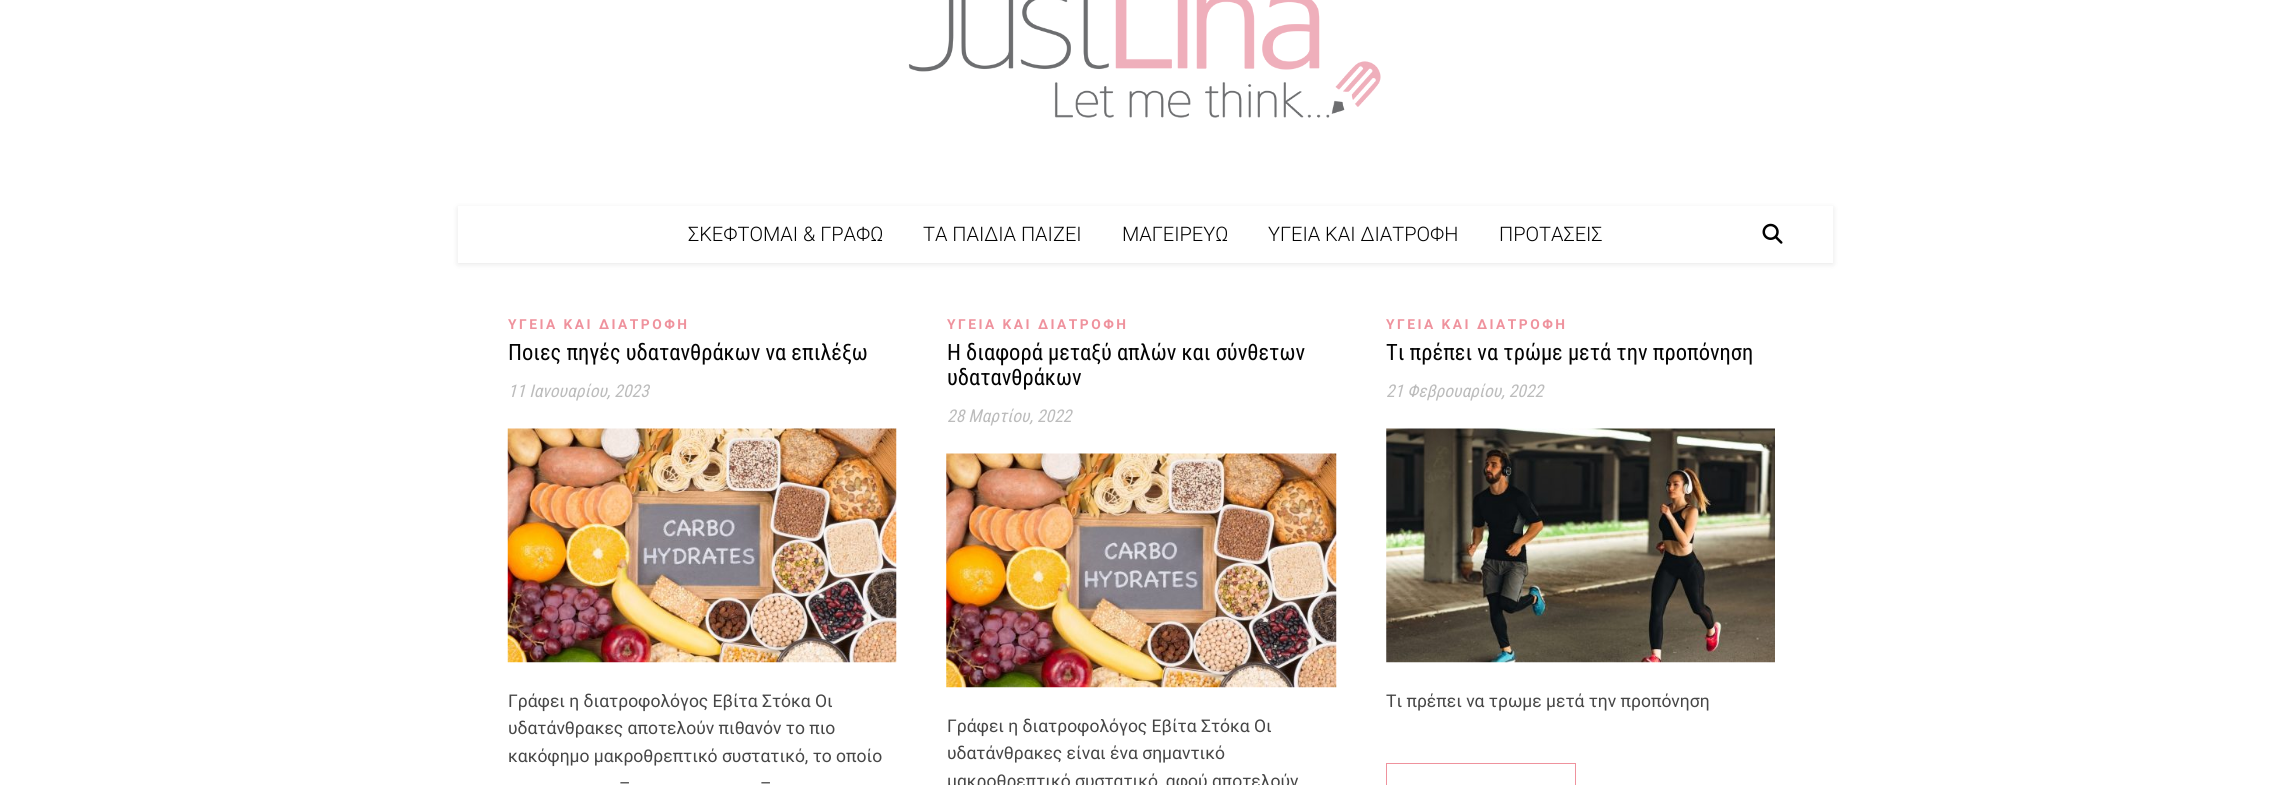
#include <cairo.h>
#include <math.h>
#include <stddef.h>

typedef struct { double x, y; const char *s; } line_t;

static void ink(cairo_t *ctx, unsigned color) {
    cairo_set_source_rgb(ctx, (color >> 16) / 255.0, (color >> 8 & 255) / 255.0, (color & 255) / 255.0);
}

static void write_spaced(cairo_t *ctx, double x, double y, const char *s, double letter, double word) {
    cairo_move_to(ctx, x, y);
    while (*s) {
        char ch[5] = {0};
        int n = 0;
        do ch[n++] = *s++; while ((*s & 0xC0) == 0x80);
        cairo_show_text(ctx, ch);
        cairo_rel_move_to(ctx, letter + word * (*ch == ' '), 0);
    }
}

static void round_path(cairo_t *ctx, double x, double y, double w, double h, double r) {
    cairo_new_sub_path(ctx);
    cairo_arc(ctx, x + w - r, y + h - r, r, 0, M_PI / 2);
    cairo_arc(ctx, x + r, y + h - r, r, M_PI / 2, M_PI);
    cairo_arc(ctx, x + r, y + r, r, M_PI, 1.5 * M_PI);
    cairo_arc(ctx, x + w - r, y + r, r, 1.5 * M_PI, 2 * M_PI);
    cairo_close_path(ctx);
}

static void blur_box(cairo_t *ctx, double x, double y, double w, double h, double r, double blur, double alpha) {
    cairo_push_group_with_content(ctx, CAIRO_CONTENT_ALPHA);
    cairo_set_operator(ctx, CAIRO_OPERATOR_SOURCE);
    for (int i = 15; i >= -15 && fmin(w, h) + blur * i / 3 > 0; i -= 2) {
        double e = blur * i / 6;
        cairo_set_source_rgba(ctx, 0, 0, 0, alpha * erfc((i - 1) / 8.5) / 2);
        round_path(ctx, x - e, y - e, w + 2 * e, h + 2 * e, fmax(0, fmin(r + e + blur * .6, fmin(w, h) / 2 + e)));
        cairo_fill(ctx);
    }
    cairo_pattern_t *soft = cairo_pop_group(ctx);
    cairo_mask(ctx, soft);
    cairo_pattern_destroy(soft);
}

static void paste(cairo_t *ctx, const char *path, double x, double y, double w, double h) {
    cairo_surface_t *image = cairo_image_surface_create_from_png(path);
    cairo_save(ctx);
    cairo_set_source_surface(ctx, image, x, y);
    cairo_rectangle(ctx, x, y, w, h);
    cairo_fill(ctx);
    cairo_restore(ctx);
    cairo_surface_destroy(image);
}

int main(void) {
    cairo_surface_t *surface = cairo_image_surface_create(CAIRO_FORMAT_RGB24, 2289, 785);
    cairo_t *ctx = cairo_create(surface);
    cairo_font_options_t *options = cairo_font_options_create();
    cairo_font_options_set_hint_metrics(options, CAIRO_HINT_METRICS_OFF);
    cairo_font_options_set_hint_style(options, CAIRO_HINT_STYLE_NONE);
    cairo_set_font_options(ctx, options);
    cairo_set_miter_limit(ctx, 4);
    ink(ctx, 0xFFFFFF);
    cairo_paint(ctx);
    paste(ctx, "media/1.png", 908, 0, 473, 118);
    ink(ctx, 0x000000);
    blur_box(ctx, 458, 208, 1375, 56, 0, 3, 0.1);
    ink(ctx, 0xFFFFFF);
    cairo_rectangle(ctx, 458, 206, 1375, 57);
    cairo_fill(ctx);
    cairo_select_font_face(ctx, "Roboto Light", CAIRO_FONT_SLANT_NORMAL, CAIRO_FONT_WEIGHT_NORMAL);
    cairo_set_font_size(ctx, 20);
    ink(ctx, 0x030303);
    {
        static const line_t items[] = {
            {688, 241, "ΣΚΕΦΤΟΜΑΙ & ΓΡΑΦΩ"},
            {923, 241, "ΤΑ ΠΑΙΔΙΑ ΠΑΙΖΕΙ"},
            {1122, 241, "ΜΑΓΕΙΡΕΥΩ"},
            {1268, 241, "ΥΓΕΙΑ ΚΑΙ ΔΙΑΤΡΟΦΗ"},
            {1499, 241, "ΠΡΟΤΑΣΕΙΣ"},
        };
        for (size_t i = 0; i < sizeof items / sizeof *items; i++) {
            cairo_move_to(ctx, items[i].x, items[i].y);
            cairo_show_text(ctx, items[i].s);
        }
    }
    paste(ctx, "media/2.png", 1762, 223, 21, 21);
    cairo_select_font_face(ctx, "Roboto", CAIRO_FONT_SLANT_NORMAL, CAIRO_FONT_WEIGHT_BOLD);
    cairo_set_font_size(ctx, 13.75);
    ink(ctx, 0xEF929D);
    write_spaced(ctx, 508, 329, "ΥΓΕΙΑ ΚΑΙ ΔΙΑΤΡΟΦΗ", 2.5, 0);
    cairo_select_font_face(ctx, "Roboto Condensed", CAIRO_FONT_SLANT_NORMAL, CAIRO_FONT_WEIGHT_NORMAL);
    cairo_set_font_size(ctx, 22.5);
    ink(ctx, 0x030303);
    cairo_move_to(ctx, 508, 360);
    cairo_show_text(ctx, "Ποιες πηγές υδατανθράκων να επιλέξω");
    cairo_select_font_face(ctx, "Roboto Condensed", CAIRO_FONT_SLANT_ITALIC, CAIRO_FONT_WEIGHT_NORMAL);
    cairo_set_font_size(ctx, 17.5);
    ink(ctx, 0xBCBCBC);
    cairo_move_to(ctx, 508, 397);
    cairo_show_text(ctx, "11 Ιανουαρίου, 2023");
    paste(ctx, "media/3.png", 507, 428, 390, 235);
    cairo_select_font_face(ctx, "Roboto", CAIRO_FONT_SLANT_NORMAL, CAIRO_FONT_WEIGHT_NORMAL);
    ink(ctx, 0x464646);
    {
        static const line_t items[] = {
            {508, 707, "Γράφει η διατροφολόγος Εβίτα Στόκα Οι"},
            {508, 734, "υδατάνθρακες αποτελούν πιθανόν το πιο"},
            {508, 762, "κακόφημο μακροθρεπτικό συστατικό, το οποίο"},
            {619, 789, "–"},
            {760, 789, "–"},
        };
        for (size_t i = 0; i < sizeof items / sizeof *items; i++) {
            cairo_move_to(ctx, items[i].x, items[i].y);
            cairo_show_text(ctx, items[i].s);
        }
    }
    cairo_select_font_face(ctx, "Roboto", CAIRO_FONT_SLANT_NORMAL, CAIRO_FONT_WEIGHT_BOLD);
    cairo_set_font_size(ctx, 13.75);
    ink(ctx, 0xEF929D);
    write_spaced(ctx, 947, 329, "ΥΓΕΙΑ ΚΑΙ ΔΙΑΤΡΟΦΗ", 2.5, 0);
    cairo_select_font_face(ctx, "Roboto Condensed", CAIRO_FONT_SLANT_NORMAL, CAIRO_FONT_WEIGHT_NORMAL);
    cairo_set_font_size(ctx, 22.5);
    ink(ctx, 0x030303);
    cairo_move_to(ctx, 947, 360);
    cairo_show_text(ctx, "Η διαφορά μεταξύ απλών και σύνθετων");
    cairo_move_to(ctx, 947, 385);
    cairo_show_text(ctx, "υδατανθράκων");
    cairo_select_font_face(ctx, "Roboto Condensed", CAIRO_FONT_SLANT_ITALIC, CAIRO_FONT_WEIGHT_NORMAL);
    cairo_set_font_size(ctx, 17.5);
    ink(ctx, 0xBCBCBC);
    cairo_move_to(ctx, 947, 422);
    cairo_show_text(ctx, "28 Μαρτίου, 2022");
    paste(ctx, "media/4.png", 946, 453, 391, 235);
    cairo_select_font_face(ctx, "Roboto", CAIRO_FONT_SLANT_NORMAL, CAIRO_FONT_WEIGHT_NORMAL);
    ink(ctx, 0x464646);
    {
        static const line_t items[] = {
            {947, 732, "Γράφει η διατροφολόγος Εβίτα Στόκα Οι"},
            {947, 759, "υδατάνθρακες είναι ένα σημαντικό"},
            {947, 787, "μακροθρεπτικό συστατικό, αφού αποτελούν"},
        };
        for (size_t i = 0; i < sizeof items / sizeof *items; i++) {
            cairo_move_to(ctx, items[i].x, items[i].y);
            cairo_show_text(ctx, items[i].s);
        }
    }
    cairo_select_font_face(ctx, "Roboto", CAIRO_FONT_SLANT_NORMAL, CAIRO_FONT_WEIGHT_BOLD);
    cairo_set_font_size(ctx, 13.75);
    ink(ctx, 0xEF929D);
    write_spaced(ctx, 1386, 329, "ΥΓΕΙΑ ΚΑΙ ΔΙΑΤΡΟΦΗ", 2.5, 0);
    cairo_select_font_face(ctx, "Roboto Condensed", CAIRO_FONT_SLANT_NORMAL, CAIRO_FONT_WEIGHT_NORMAL);
    cairo_set_font_size(ctx, 22.5);
    ink(ctx, 0x030303);
    cairo_move_to(ctx, 1386, 360);
    cairo_show_text(ctx, "Τι πρέπει να τρώμε μετά την προπόνηση");
    cairo_select_font_face(ctx, "Roboto Condensed", CAIRO_FONT_SLANT_ITALIC, CAIRO_FONT_WEIGHT_NORMAL);
    cairo_set_font_size(ctx, 17.5);
    ink(ctx, 0xBCBCBC);
    cairo_move_to(ctx, 1386, 397);
    cairo_show_text(ctx, "21 Φεβρουαρίου, 2022");
    paste(ctx, "media/5.png", 1386, 428, 389, 235);
    cairo_select_font_face(ctx, "Roboto", CAIRO_FONT_SLANT_NORMAL, CAIRO_FONT_WEIGHT_NORMAL);
    ink(ctx, 0x464646);
    cairo_move_to(ctx, 1386, 707);
    cairo_show_text(ctx, "Τι πρέπει να τρωμε μετά την προπόνηση");
    cairo_rectangle(ctx, 1386.5, 763.5, 189, 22);
    ink(ctx, 0xEF929D);
    cairo_set_line_width(ctx, 1);
    cairo_stroke(ctx);
    cairo_surface_write_to_png(surface, "image.png");
    cairo_font_options_destroy(options);
    cairo_destroy(ctx);
    cairo_surface_destroy(surface);
    return 0;
}
